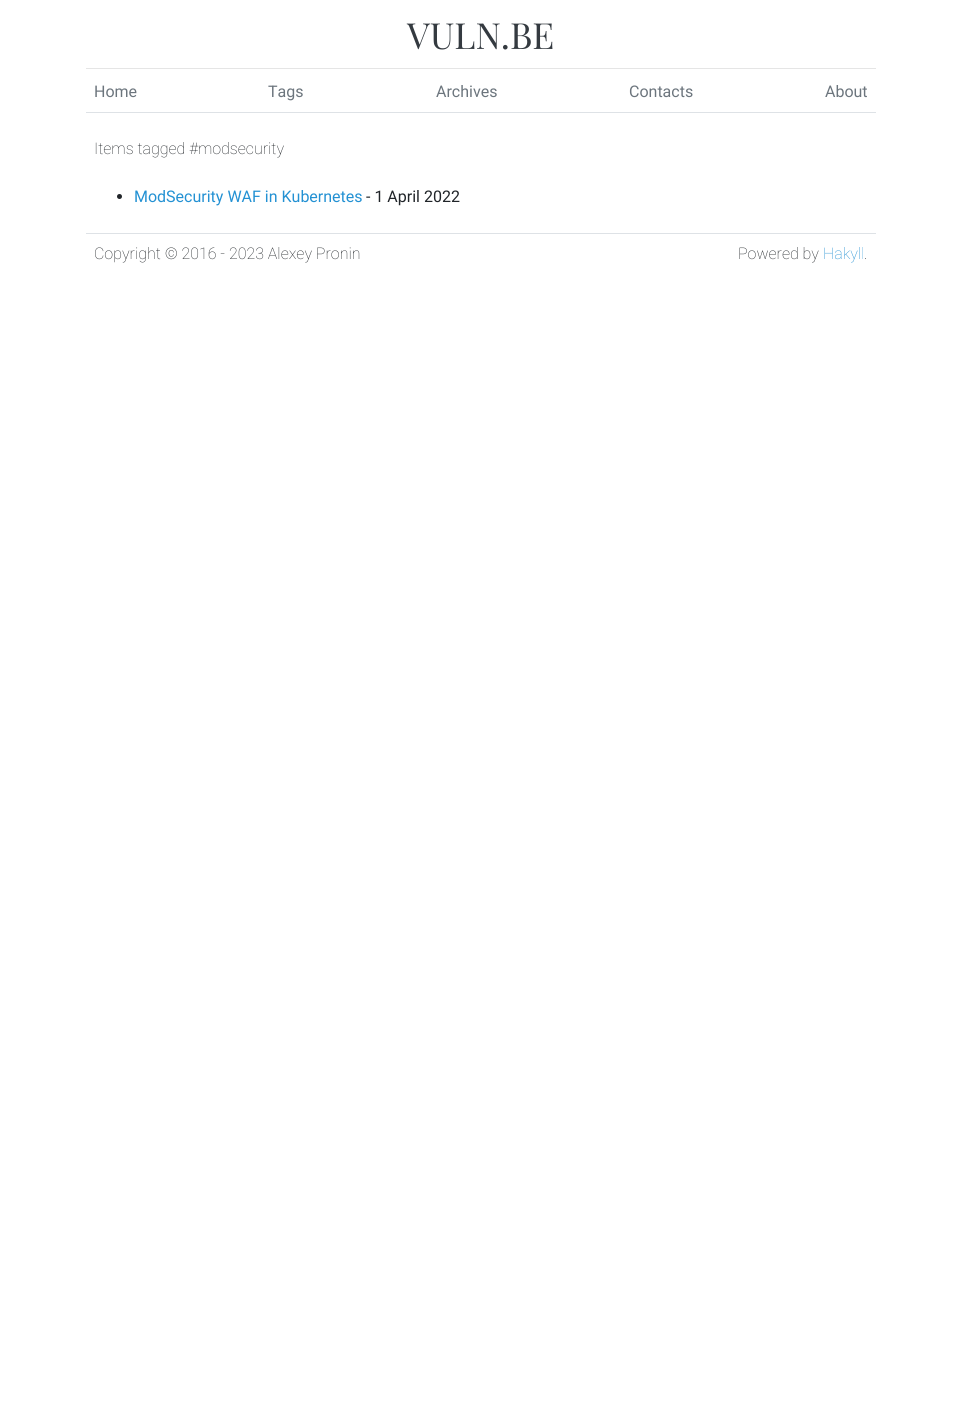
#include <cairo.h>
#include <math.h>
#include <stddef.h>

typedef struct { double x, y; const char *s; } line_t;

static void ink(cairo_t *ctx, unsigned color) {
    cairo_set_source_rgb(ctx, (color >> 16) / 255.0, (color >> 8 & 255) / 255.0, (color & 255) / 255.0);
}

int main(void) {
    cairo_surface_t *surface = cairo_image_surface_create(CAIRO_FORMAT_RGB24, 961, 1401);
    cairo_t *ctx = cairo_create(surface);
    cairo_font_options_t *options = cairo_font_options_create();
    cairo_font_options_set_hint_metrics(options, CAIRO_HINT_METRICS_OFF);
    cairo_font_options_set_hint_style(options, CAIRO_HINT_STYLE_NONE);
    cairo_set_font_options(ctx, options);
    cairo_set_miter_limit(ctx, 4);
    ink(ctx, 0xFFFFFF);
    cairo_paint(ctx);
    ink(ctx, 0xE5E5E5);
    cairo_rectangle(ctx, 86, 68, 790, 1);
    cairo_fill(ctx);
    cairo_select_font_face(ctx, "Playfair Display", CAIRO_FONT_SLANT_NORMAL, CAIRO_FONT_WEIGHT_NORMAL);
    cairo_set_font_size(ctx, 36);
    ink(ctx, 0x343A40);
    cairo_move_to(ctx, 407, 49);
    cairo_show_text(ctx, "VULN.BE");
    ink(ctx, 0xDEE2E6);
    cairo_rectangle(ctx, 86, 112, 790, 1);
    cairo_fill(ctx);
    cairo_select_font_face(ctx, "Roboto", CAIRO_FONT_SLANT_NORMAL, CAIRO_FONT_WEIGHT_NORMAL);
    cairo_set_font_size(ctx, 16);
    ink(ctx, 0x6C757D);
    {
        static const line_t items[] = {
            {94, 97, "Home"},
            {268, 97, "Tags"},
            {436, 97, "Archives"},
            {629, 97, "Contacts"},
            {825, 97, "About"},
        };
        for (size_t i = 0; i < sizeof items / sizeof *items; i++) {
            cairo_move_to(ctx, items[i].x, items[i].y);
            cairo_show_text(ctx, items[i].s);
        }
    }
    cairo_select_font_face(ctx, "Roboto Thin", CAIRO_FONT_SLANT_NORMAL, CAIRO_FONT_WEIGHT_NORMAL);
    ink(ctx, 0x212529);
    cairo_move_to(ctx, 94, 154);
    cairo_show_text(ctx, "Items tagged #modsecurity");
    cairo_new_path(ctx);
    cairo_arc(ctx, 119.5, 196.5, 2.5, 0, 2 * M_PI);
    cairo_fill(ctx);
    cairo_select_font_face(ctx, "Roboto", CAIRO_FONT_SLANT_NORMAL, CAIRO_FONT_WEIGHT_NORMAL);
    ink(ctx, 0x2391D3);
    cairo_move_to(ctx, 134, 202);
    cairo_show_text(ctx, "ModSecurity WAF in Kubernetes");
    ink(ctx, 0x212529);
    cairo_move_to(ctx, 366, 202);
    cairo_show_text(ctx, "- 1 April 2022");
    ink(ctx, 0xDEE2E6);
    cairo_rectangle(ctx, 86, 233, 790, 1);
    cairo_fill(ctx);
    cairo_select_font_face(ctx, "Roboto Thin", CAIRO_FONT_SLANT_NORMAL, CAIRO_FONT_WEIGHT_NORMAL);
    ink(ctx, 0x212529);
    cairo_move_to(ctx, 94, 259);
    cairo_show_text(ctx, "Copyright © 2016 - 2023 Alexey Pronin");
    cairo_move_to(ctx, 738, 259);
    cairo_show_text(ctx, "Powered by");
    ink(ctx, 0x2391D3);
    cairo_move_to(ctx, 823, 259);
    cairo_show_text(ctx, "Hakyll");
    ink(ctx, 0x212529);
    cairo_move_to(ctx, 864, 259);
    cairo_show_text(ctx, ".");
    cairo_surface_write_to_png(surface, "image.png");
    cairo_font_options_destroy(options);
    cairo_destroy(ctx);
    cairo_surface_destroy(surface);
    return 0;
}
